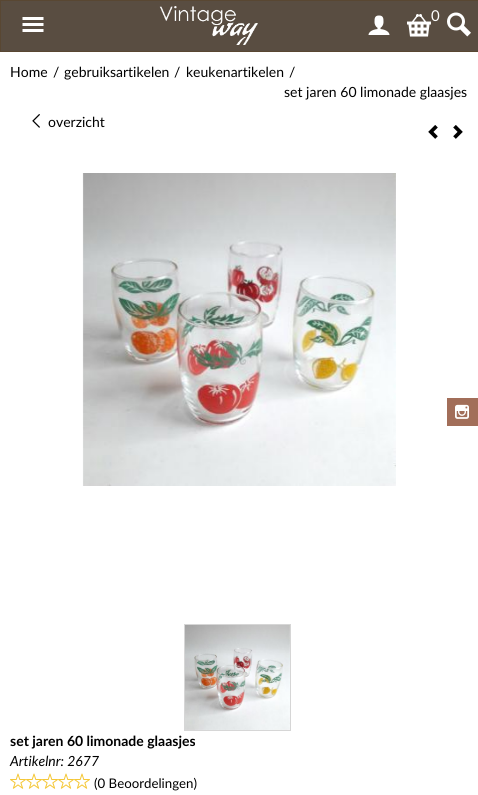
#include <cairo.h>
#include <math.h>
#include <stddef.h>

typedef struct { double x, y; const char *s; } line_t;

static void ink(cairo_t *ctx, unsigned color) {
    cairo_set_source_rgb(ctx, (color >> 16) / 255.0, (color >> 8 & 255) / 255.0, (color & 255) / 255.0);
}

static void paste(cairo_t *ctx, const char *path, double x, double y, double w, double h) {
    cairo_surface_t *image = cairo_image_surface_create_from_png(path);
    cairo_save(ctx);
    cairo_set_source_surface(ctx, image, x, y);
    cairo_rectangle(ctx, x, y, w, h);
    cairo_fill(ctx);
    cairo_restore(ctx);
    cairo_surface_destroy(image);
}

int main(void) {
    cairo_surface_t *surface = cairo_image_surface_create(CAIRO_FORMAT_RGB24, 478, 795);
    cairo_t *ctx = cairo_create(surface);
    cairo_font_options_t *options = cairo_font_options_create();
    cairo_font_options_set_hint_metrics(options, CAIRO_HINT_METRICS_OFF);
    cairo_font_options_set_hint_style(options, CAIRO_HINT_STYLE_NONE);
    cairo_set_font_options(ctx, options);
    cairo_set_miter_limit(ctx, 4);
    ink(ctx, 0xFFFFFF);
    cairo_paint(ctx);
    ink(ctx, 0x594D41);
    cairo_rectangle(ctx, 0.5, 0.5, 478, 51);
    cairo_fill_preserve(ctx);
    ink(ctx, 0x594732);
    cairo_set_line_width(ctx, 1);
    cairo_stroke(ctx);
    paste(ctx, "media/1.png", 22, 17, 22, 15);
    paste(ctx, "media/2.png", 159, 6, 99, 39);
    paste(ctx, "media/3.png", 368, 15, 22, 20);
    paste(ctx, "media/4.png", 407, 14, 24, 23);
    cairo_select_font_face(ctx, "Lato", CAIRO_FONT_SLANT_NORMAL, CAIRO_FONT_WEIGHT_NORMAL);
    cairo_set_font_size(ctx, 15);
    ink(ctx, 0xFFFFFF);
    cairo_move_to(ctx, 431, 21);
    cairo_show_text(ctx, "0");
    paste(ctx, "media/5.png", 447, 12, 24, 25);
    cairo_set_font_size(ctx, 14);
    ink(ctx, 0x000000);
    {
        static const line_t items[] = {
            {10, 77, "Home"},
            {53, 77, "/"},
            {64, 77, "gebruiksartikelen"},
            {174, 77, "/"},
            {186, 77, "keukenartikelen"},
            {289, 77, "/"},
            {284, 97, "set jaren 60 limonade glaasjes"},
        };
        for (size_t i = 0; i < sizeof items / sizeof *items; i++) {
            cairo_move_to(ctx, items[i].x, items[i].y);
            cairo_show_text(ctx, items[i].s);
        }
    }
    paste(ctx, "media/6.png", 32, 114, 8, 14);
    cairo_move_to(ctx, 48, 127);
    cairo_show_text(ctx, "overzicht");
    paste(ctx, "media/7.png", 428, 125, 10, 14);
    paste(ctx, "media/8.png", 453, 125, 10, 14);
    paste(ctx, "media/9.png", 82, 173, 314, 313);
    cairo_rectangle(ctx, 184.5, 624.5, 106, 106);
    ink(ctx, 0xD6D6D6);
    cairo_stroke(ctx);
    paste(ctx, "media/10.png", 185, 625, 105, 105);
    cairo_select_font_face(ctx, "Lato", CAIRO_FONT_SLANT_NORMAL, CAIRO_FONT_WEIGHT_BOLD);
    ink(ctx, 0x000000);
    cairo_move_to(ctx, 10, 746);
    cairo_show_text(ctx, "set jaren 60 limonade glaasjes");
    cairo_select_font_face(ctx, "Lato", CAIRO_FONT_SLANT_ITALIC, CAIRO_FONT_WEIGHT_NORMAL);
    cairo_move_to(ctx, 10, 766);
    cairo_show_text(ctx, "Artikelnr: 2677");
    paste(ctx, "media/11.png", 10, 773, 16, 16);
    paste(ctx, "media/11.png", 26, 773, 16, 16);
    paste(ctx, "media/11.png", 42, 773, 16, 16);
    paste(ctx, "media/11.png", 58, 773, 16, 16);
    paste(ctx, "media/11.png", 74, 773, 16, 16);
    cairo_select_font_face(ctx, "Lato", CAIRO_FONT_SLANT_NORMAL, CAIRO_FONT_WEIGHT_NORMAL);
    cairo_set_font_size(ctx, 13.25);
    cairo_move_to(ctx, 94, 788);
    cairo_show_text(ctx, "(0 Beoordelingen)");
    ink(ctx, 0xA26E59);
    cairo_rectangle(ctx, 447, 398, 31, 28);
    cairo_fill(ctx);
    paste(ctx, "media/12.png", 455, 404, 14, 15);
    cairo_surface_write_to_png(surface, "image.png");
    cairo_font_options_destroy(options);
    cairo_destroy(ctx);
    cairo_surface_destroy(surface);
    return 0;
}
